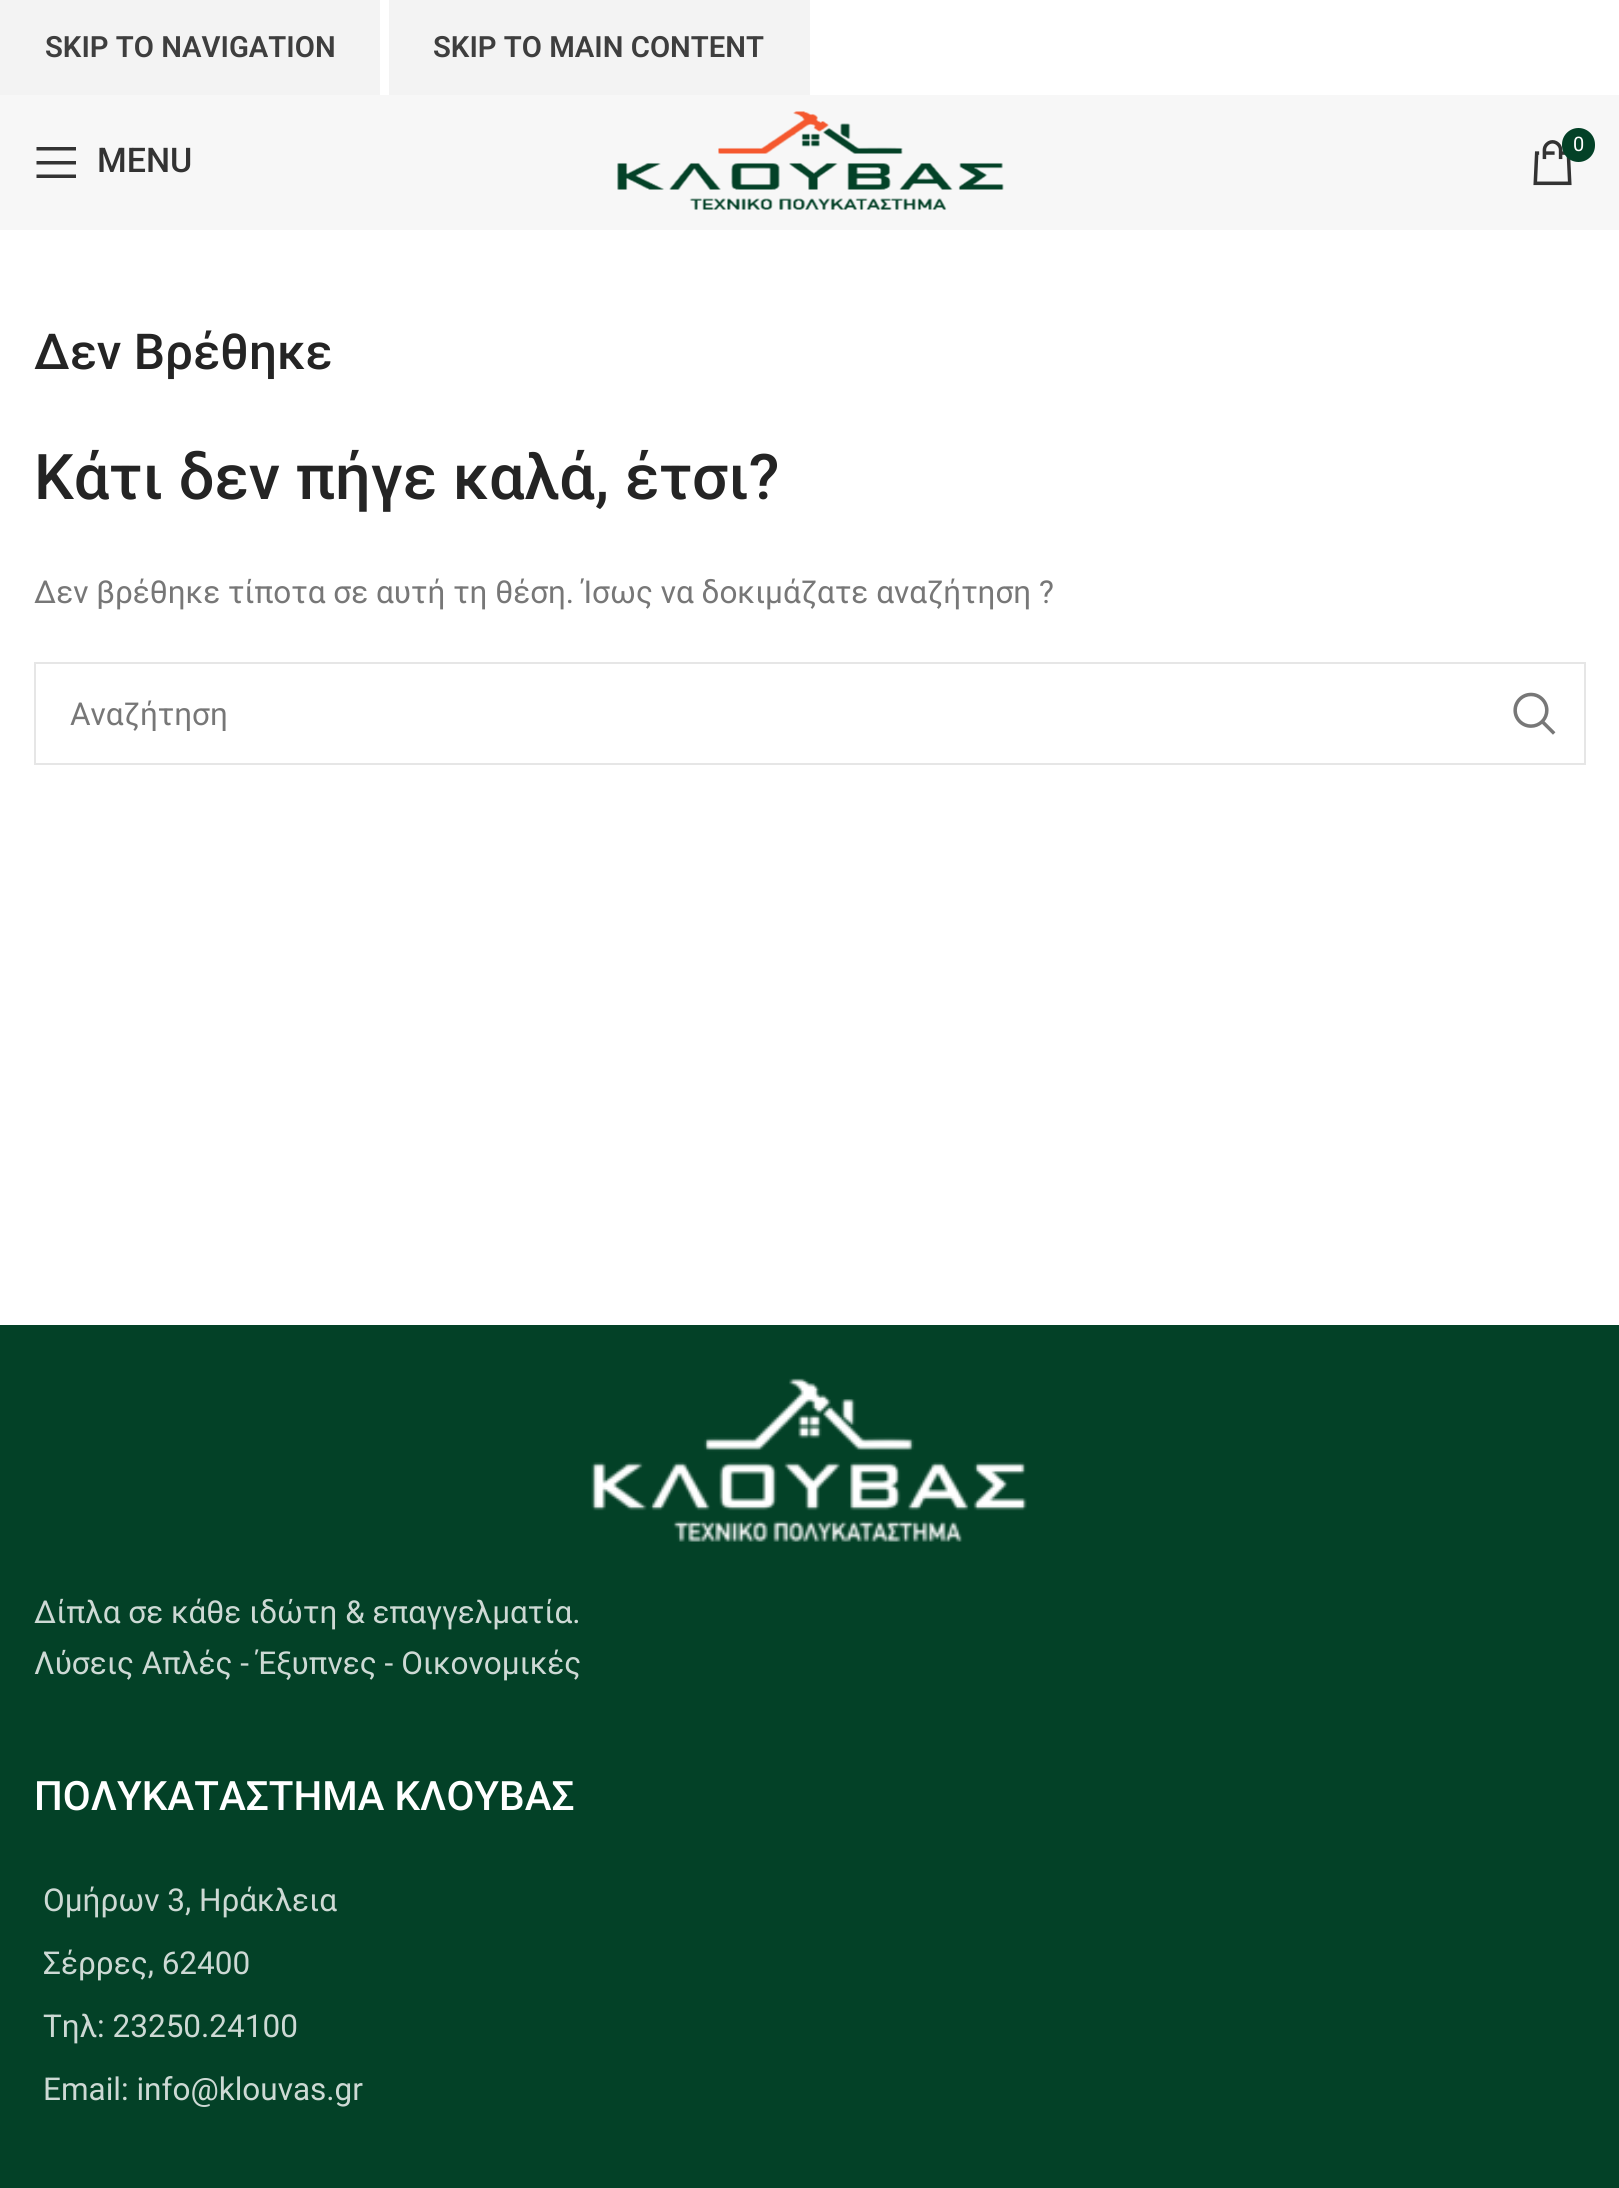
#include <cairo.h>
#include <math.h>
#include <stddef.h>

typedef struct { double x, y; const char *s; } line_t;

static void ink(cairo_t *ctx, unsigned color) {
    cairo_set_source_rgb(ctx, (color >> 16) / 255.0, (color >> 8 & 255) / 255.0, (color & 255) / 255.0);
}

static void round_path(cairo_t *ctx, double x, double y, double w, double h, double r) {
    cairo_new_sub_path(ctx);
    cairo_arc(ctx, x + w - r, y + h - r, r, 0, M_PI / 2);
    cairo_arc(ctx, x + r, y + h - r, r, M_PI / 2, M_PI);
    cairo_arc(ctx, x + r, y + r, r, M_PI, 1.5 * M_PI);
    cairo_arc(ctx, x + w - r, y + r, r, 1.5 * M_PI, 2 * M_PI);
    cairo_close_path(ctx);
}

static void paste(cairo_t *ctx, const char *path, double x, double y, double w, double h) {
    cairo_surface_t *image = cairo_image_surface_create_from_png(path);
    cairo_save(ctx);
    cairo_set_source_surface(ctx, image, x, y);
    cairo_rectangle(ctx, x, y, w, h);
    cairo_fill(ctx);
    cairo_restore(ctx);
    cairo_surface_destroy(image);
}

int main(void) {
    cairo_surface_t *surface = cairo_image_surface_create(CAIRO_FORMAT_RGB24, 1619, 2188);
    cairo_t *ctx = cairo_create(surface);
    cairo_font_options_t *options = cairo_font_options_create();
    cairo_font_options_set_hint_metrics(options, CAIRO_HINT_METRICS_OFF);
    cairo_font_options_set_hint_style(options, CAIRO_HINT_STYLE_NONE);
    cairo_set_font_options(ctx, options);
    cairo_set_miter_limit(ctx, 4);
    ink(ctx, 0xFFFFFF);
    cairo_paint(ctx);
    ink(ctx, 0xF3F3F3);
    cairo_rectangle(ctx, 0, 0, 380, 95);
    cairo_fill(ctx);
    cairo_select_font_face(ctx, "Roboto SemiBold", CAIRO_FONT_SLANT_NORMAL, CAIRO_FONT_WEIGHT_NORMAL);
    cairo_set_font_size(ctx, 29.25);
    ink(ctx, 0x3E3E3E);
    cairo_move_to(ctx, 45, 57);
    cairo_show_text(ctx, "SKIP TO NAVIGATION");
    ink(ctx, 0xF3F3F3);
    cairo_rectangle(ctx, 389, 0, 421, 95);
    cairo_fill(ctx);
    ink(ctx, 0x3E3E3E);
    cairo_move_to(ctx, 433, 57);
    cairo_show_text(ctx, "SKIP TO MAIN CONTENT");
    ink(ctx, 0xF7F7F7);
    cairo_rectangle(ctx, 0, 95, 1619, 135);
    cairo_fill(ctx);
    paste(ctx, "media/1.png", 617, 111, 387, 99);
    paste(ctx, "media/2.png", 1533, 140, 39, 46);
    ink(ctx, 0x034127);
    round_path(ctx, 1562, 128, 33, 34, 16.5);
    cairo_fill(ctx);
    cairo_select_font_face(ctx, "Roboto", CAIRO_FONT_SLANT_NORMAL, CAIRO_FONT_WEIGHT_NORMAL);
    cairo_set_font_size(ctx, 20);
    ink(ctx, 0xFFFFFF);
    cairo_move_to(ctx, 1573, 151);
    cairo_show_text(ctx, "0");
    ink(ctx, 0x333333);
    cairo_new_path(ctx);
    cairo_move_to(ctx, 36.5, 150.5);
    cairo_line_to(ctx, 76, 150.5);
    cairo_line_to(ctx, 76, 147);
    cairo_line_to(ctx, 36.5, 147);
    cairo_close_path(ctx);
    cairo_move_to(ctx, 36.5, 164.5);
    cairo_line_to(ctx, 76, 164.5);
    cairo_line_to(ctx, 76, 161);
    cairo_line_to(ctx, 36.5, 161);
    cairo_close_path(ctx);
    cairo_move_to(ctx, 36.5, 178);
    cairo_line_to(ctx, 76, 178);
    cairo_line_to(ctx, 76, 174.5);
    cairo_line_to(ctx, 36.5, 174.5);
    cairo_close_path(ctx);
    cairo_fill(ctx);
    cairo_select_font_face(ctx, "Roboto Medium", CAIRO_FONT_SLANT_NORMAL, CAIRO_FONT_WEIGHT_NORMAL);
    cairo_set_font_size(ctx, 34);
    cairo_move_to(ctx, 97, 172);
    cairo_show_text(ctx, "MENU");
    cairo_set_font_size(ctx, 49.5);
    ink(ctx, 0x242424);
    cairo_move_to(ctx, 34, 369);
    cairo_show_text(ctx, "Δεν Βρέθηκε");
    cairo_set_font_size(ctx, 63);
    cairo_move_to(ctx, 34, 499);
    cairo_show_text(ctx, "Κάτι δεν πήγε καλά, έτσι?");
    cairo_select_font_face(ctx, "Roboto", CAIRO_FONT_SLANT_NORMAL, CAIRO_FONT_WEIGHT_NORMAL);
    cairo_set_font_size(ctx, 31.5);
    ink(ctx, 0x777777);
    cairo_move_to(ctx, 34, 603);
    cairo_show_text(ctx, "Δεν βρέθηκε τίποτα σε αυτή τη θέση. Ίσως να δοκιμάζατε αναζήτηση ?");
    cairo_rectangle(ctx, 35, 663, 1550, 101);
    ink(ctx, 0xE6E6E6);
    cairo_stroke(ctx);
    cairo_save(ctx);
    cairo_rectangle(ctx, 70, 695, 1343, 36);
    cairo_clip(ctx);
    ink(ctx, 0x777777);
    cairo_move_to(ctx, 70, 725);
    cairo_show_text(ctx, "Αναζήτηση");
    cairo_restore(ctx);
    paste(ctx, "media/3.png", 1513, 692, 43, 43);
    ink(ctx, 0x034127);
    cairo_rectangle(ctx, 0, 1325, 1619, 863);
    cairo_fill(ctx);
    paste(ctx, "media/4.png", 591, 1378, 436, 164);
    ink(ctx, 0xCDD9D4);
    cairo_move_to(ctx, 34, 1623);
    cairo_show_text(ctx, "Δίπλα σε κάθε ιδώτη & επαγγελματία.");
    cairo_move_to(ctx, 34, 1674);
    cairo_show_text(ctx, "Λύσεις Απλές - Έξυπνες - Οικονομικές");
    cairo_select_font_face(ctx, "Roboto Medium", CAIRO_FONT_SLANT_NORMAL, CAIRO_FONT_WEIGHT_NORMAL);
    cairo_set_font_size(ctx, 40.5);
    ink(ctx, 0xFFFFFF);
    cairo_move_to(ctx, 34, 1810);
    cairo_show_text(ctx, "ΠΟΛΥΚΑΤΑΣΤΗΜΑ ΚΛΟΥΒΑΣ");
    cairo_select_font_face(ctx, "Roboto", CAIRO_FONT_SLANT_NORMAL, CAIRO_FONT_WEIGHT_NORMAL);
    cairo_set_font_size(ctx, 31.5);
    ink(ctx, 0xCDD9D4);
    {
        static const line_t items[] = {
            {43, 1911, "Ομήρων 3, Ηράκλεια"},
            {43, 1974, "Σέρρες, 62400"},
            {43, 2037, "Τηλ: 23250.24100"},
            {43, 2100, "Email: info@klouvas.gr"},
        };
        for (size_t i = 0; i < sizeof items / sizeof *items; i++) {
            cairo_move_to(ctx, items[i].x, items[i].y);
            cairo_show_text(ctx, items[i].s);
        }
    }
    cairo_surface_write_to_png(surface, "image.png");
    cairo_font_options_destroy(options);
    cairo_destroy(ctx);
    cairo_surface_destroy(surface);
    return 0;
}
